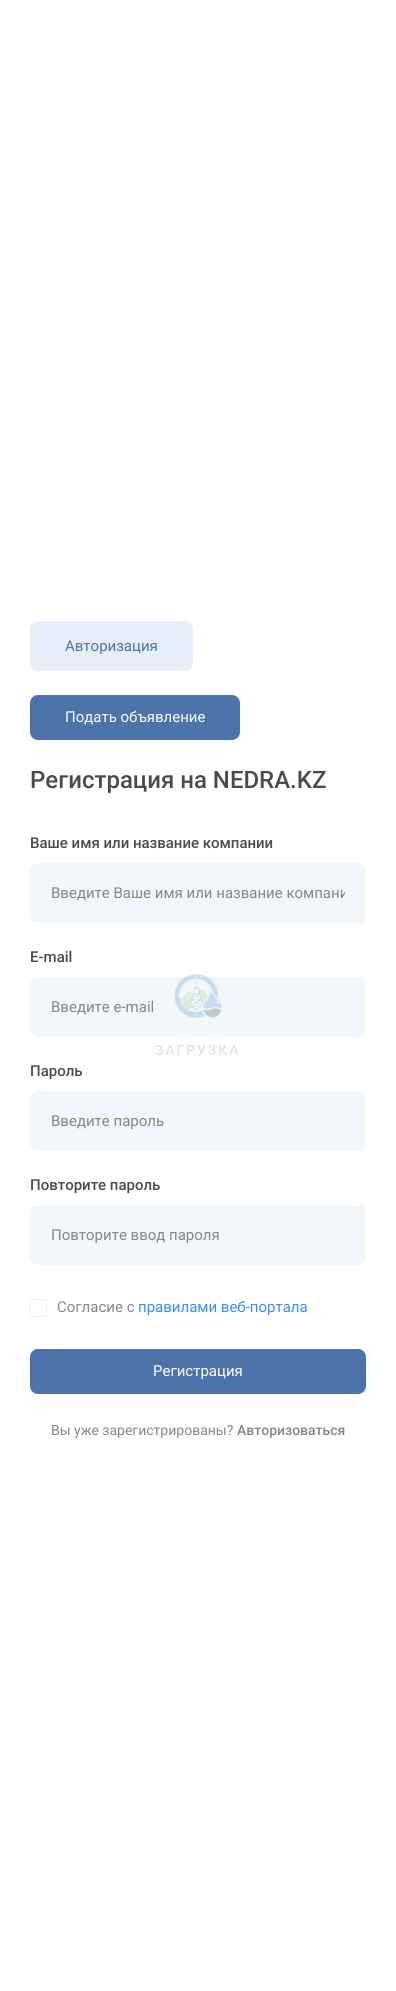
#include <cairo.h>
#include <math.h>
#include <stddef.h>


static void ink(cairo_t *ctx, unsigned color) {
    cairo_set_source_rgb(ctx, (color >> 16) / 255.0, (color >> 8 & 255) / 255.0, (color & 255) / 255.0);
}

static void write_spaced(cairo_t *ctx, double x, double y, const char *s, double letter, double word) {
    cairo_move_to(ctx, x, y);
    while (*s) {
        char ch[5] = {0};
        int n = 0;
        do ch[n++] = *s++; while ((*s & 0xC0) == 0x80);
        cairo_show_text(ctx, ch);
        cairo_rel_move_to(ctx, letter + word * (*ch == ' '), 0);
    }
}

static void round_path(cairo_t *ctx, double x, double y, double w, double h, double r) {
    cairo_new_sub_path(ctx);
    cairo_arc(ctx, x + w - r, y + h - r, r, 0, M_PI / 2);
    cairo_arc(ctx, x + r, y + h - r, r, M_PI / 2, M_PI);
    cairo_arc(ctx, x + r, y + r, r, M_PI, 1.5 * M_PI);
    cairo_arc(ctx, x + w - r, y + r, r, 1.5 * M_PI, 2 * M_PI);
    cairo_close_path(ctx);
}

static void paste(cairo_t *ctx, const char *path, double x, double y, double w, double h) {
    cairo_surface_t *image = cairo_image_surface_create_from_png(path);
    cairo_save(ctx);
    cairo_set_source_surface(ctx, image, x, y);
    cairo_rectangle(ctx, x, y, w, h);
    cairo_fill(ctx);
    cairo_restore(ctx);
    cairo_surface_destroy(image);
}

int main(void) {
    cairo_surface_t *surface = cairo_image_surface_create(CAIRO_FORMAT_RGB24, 396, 1991);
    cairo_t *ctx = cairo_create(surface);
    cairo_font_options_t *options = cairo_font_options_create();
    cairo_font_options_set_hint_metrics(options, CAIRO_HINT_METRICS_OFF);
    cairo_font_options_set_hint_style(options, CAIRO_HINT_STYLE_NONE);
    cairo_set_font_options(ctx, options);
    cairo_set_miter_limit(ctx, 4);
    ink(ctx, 0xFFFFFF);
    cairo_paint(ctx);
    ink(ctx, 0xE8EEF9);
    round_path(ctx, 30, 621, 163, 50, 8);
    cairo_fill(ctx);
    cairo_select_font_face(ctx, "Roboto", CAIRO_FONT_SLANT_NORMAL, CAIRO_FONT_WEIGHT_NORMAL);
    cairo_set_font_size(ctx, 15);
    ink(ctx, 0x4C74AB);
    cairo_move_to(ctx, 65, 651);
    cairo_show_text(ctx, "Авторизация");
    round_path(ctx, 30, 695, 210, 45, 8);
    cairo_fill(ctx);
    ink(ctx, 0xFFFFFF);
    cairo_move_to(ctx, 65, 722);
    cairo_show_text(ctx, "Подать объявление");
    cairo_select_font_face(ctx, "Roboto Medium", CAIRO_FONT_SLANT_NORMAL, CAIRO_FONT_WEIGHT_NORMAL);
    cairo_set_font_size(ctx, 24);
    ink(ctx, 0x4A4B4E);
    cairo_move_to(ctx, 30, 788);
    cairo_show_text(ctx, "Регистрация на NEDRA.KZ");
    cairo_set_font_size(ctx, 15);
    cairo_move_to(ctx, 30, 848);
    cairo_show_text(ctx, "Ваше имя или название компании");
    ink(ctx, 0xF3F7F9);
    round_path(ctx, 30.5, 863.5, 335, 59, 7.5);
    cairo_fill_preserve(ctx);
    cairo_set_line_width(ctx, 1);
    cairo_stroke(ctx);
    cairo_save(ctx);
    cairo_rectangle(ctx, 51, 884, 294, 18);
    cairo_clip(ctx);
    cairo_select_font_face(ctx, "Roboto", CAIRO_FONT_SLANT_NORMAL, CAIRO_FONT_WEIGHT_NORMAL);
    ink(ctx, 0x868686);
    cairo_move_to(ctx, 51, 898);
    cairo_show_text(ctx, "Введите Ваше имя или название компани");
    cairo_restore(ctx);
    ink(ctx, 0x4A4B4E);
    cairo_move_to(ctx, 30, 962);
    cairo_show_text(ctx, "E-mail");
    ink(ctx, 0xF3F7F9);
    round_path(ctx, 30.5, 977.5, 335, 59, 7.5);
    cairo_fill_preserve(ctx);
    cairo_stroke(ctx);
    cairo_select_font_face(ctx, "Roboto", CAIRO_FONT_SLANT_NORMAL, CAIRO_FONT_WEIGHT_NORMAL);
    ink(ctx, 0x868686);
    cairo_move_to(ctx, 51, 1012);
    cairo_show_text(ctx, "Введите e-mail");
    cairo_select_font_face(ctx, "Roboto Medium", CAIRO_FONT_SLANT_NORMAL, CAIRO_FONT_WEIGHT_NORMAL);
    ink(ctx, 0x4A4B4E);
    cairo_move_to(ctx, 30, 1076);
    cairo_show_text(ctx, "Пароль");
    ink(ctx, 0xF3F7F9);
    round_path(ctx, 30.5, 1091.5, 335, 59, 7.5);
    cairo_fill_preserve(ctx);
    cairo_stroke(ctx);
    cairo_select_font_face(ctx, "Roboto", CAIRO_FONT_SLANT_NORMAL, CAIRO_FONT_WEIGHT_NORMAL);
    ink(ctx, 0x868686);
    cairo_move_to(ctx, 51, 1126);
    cairo_show_text(ctx, "Введите пароль");
    cairo_select_font_face(ctx, "Roboto Medium", CAIRO_FONT_SLANT_NORMAL, CAIRO_FONT_WEIGHT_NORMAL);
    ink(ctx, 0x4A4B4E);
    cairo_move_to(ctx, 30, 1190);
    cairo_show_text(ctx, "Повторите пароль");
    ink(ctx, 0xF3F7F9);
    round_path(ctx, 30.5, 1205.5, 335, 59, 7.5);
    cairo_fill_preserve(ctx);
    cairo_stroke(ctx);
    cairo_select_font_face(ctx, "Roboto", CAIRO_FONT_SLANT_NORMAL, CAIRO_FONT_WEIGHT_NORMAL);
    ink(ctx, 0x868686);
    cairo_move_to(ctx, 51, 1240);
    cairo_show_text(ctx, "Повторите ввод пароля");
    round_path(ctx, 29.5, 1299.5, 17, 17, 1.5);
    ink(ctx, 0xF0F0F4);
    cairo_stroke(ctx);
    ink(ctx, 0x868686);
    cairo_move_to(ctx, 57, 1312);
    cairo_show_text(ctx, "Согласие с");
    ink(ctx, 0x3B8AFD);
    cairo_move_to(ctx, 138, 1312);
    cairo_show_text(ctx, "правилами веб-портала");
    ink(ctx, 0x4C74AB);
    round_path(ctx, 30, 1349, 336, 45, 8);
    cairo_fill(ctx);
    ink(ctx, 0xFFFFFF);
    cairo_move_to(ctx, 153, 1376);
    cairo_show_text(ctx, "Регистрация");
    cairo_set_font_size(ctx, 14);
    ink(ctx, 0x868686);
    cairo_move_to(ctx, 51, 1435);
    cairo_show_text(ctx, "Вы уже зарегистрированы?");
    cairo_select_font_face(ctx, "Roboto Medium", CAIRO_FONT_SLANT_NORMAL, CAIRO_FONT_WEIGHT_NORMAL);
    cairo_move_to(ctx, 237, 1435);
    cairo_show_text(ctx, "Авторизоваться");
    paste(ctx, "media/1.png", 174, 974, 48, 44);
    cairo_select_font_face(ctx, "Roboto", CAIRO_FONT_SLANT_NORMAL, CAIRO_FONT_WEIGHT_NORMAL);
    ink(ctx, 0xD5DEEB);
    write_spaced(ctx, 155, 1055, "ЗАГРУЗКА", 2, 0);
    cairo_surface_write_to_png(surface, "image.png");
    cairo_font_options_destroy(options);
    cairo_destroy(ctx);
    cairo_surface_destroy(surface);
    return 0;
}
